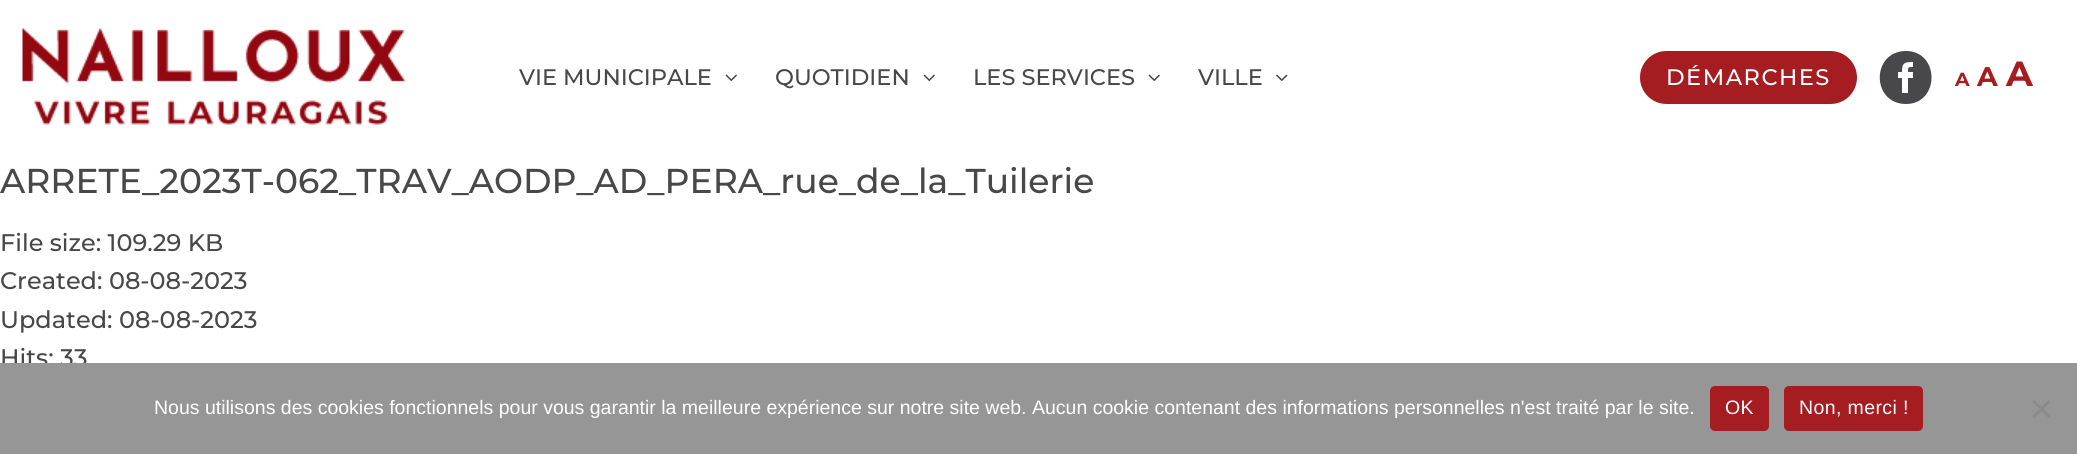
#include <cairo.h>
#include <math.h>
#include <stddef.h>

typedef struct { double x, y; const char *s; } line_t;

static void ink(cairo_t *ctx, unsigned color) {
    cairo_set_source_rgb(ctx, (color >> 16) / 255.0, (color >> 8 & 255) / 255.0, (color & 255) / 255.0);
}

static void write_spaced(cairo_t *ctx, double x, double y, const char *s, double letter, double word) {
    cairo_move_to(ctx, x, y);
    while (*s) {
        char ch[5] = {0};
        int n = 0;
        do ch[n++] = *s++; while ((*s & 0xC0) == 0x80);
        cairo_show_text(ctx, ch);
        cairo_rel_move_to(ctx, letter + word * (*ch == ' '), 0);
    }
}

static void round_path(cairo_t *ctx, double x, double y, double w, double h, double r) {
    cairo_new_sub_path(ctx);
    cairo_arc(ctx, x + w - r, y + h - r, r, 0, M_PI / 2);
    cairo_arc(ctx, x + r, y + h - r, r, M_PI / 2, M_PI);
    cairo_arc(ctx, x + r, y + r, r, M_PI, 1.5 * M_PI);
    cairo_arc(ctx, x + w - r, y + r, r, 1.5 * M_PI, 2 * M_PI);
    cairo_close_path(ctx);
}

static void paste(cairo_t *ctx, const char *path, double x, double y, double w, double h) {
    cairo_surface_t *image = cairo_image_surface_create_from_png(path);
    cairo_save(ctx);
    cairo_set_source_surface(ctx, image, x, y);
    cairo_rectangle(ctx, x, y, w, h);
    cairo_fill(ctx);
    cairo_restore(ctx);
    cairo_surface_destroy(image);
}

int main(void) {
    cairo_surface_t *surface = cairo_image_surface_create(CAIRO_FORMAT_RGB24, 2077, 454);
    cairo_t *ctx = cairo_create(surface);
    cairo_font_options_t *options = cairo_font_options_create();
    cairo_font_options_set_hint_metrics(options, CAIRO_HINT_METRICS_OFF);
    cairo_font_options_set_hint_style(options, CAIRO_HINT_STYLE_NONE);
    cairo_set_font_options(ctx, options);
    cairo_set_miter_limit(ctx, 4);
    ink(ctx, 0xFFFFFF);
    cairo_paint(ctx);
    paste(ctx, "media/1.png", 22, 28, 383, 97);
    cairo_select_font_face(ctx, "Montserrat Medium", CAIRO_FONT_SLANT_NORMAL, CAIRO_FONT_WEIGHT_NORMAL);
    cairo_set_font_size(ctx, 22.5);
    ink(ctx, 0x48484A);
    cairo_move_to(ctx, 519, 85);
    cairo_show_text(ctx, "VIE MUNICIPALE");
    paste(ctx, "media/2.png", 725, 74, 12, 7);
    cairo_move_to(ctx, 775, 85);
    cairo_show_text(ctx, "QUOTIDIEN");
    paste(ctx, "media/2.png", 923, 74, 12, 7);
    cairo_move_to(ctx, 973, 85);
    cairo_show_text(ctx, "LES SERVICES");
    paste(ctx, "media/2.png", 1148, 74, 12, 7);
    cairo_move_to(ctx, 1198, 85);
    cairo_show_text(ctx, "VILLE");
    paste(ctx, "media/3.png", 1276, 74, 12, 7);
    ink(ctx, 0xA51D21);
    round_path(ctx, 1640, 51, 217, 53, 26.5);
    cairo_fill(ctx);
    ink(ctx, 0xFFFFFF);
    write_spaced(ctx, 1666, 85, "DÉMARCHES", 1.5, 0);
    ink(ctx, 0x48484A);
    cairo_new_path(ctx);
    cairo_move_to(ctx, 1906, 51);
    cairo_curve_to(ctx, 1871, 51, 1871, 104, 1906, 104);
    cairo_curve_to(ctx, 1940, 104, 1940, 51, 1906, 51);
    cairo_close_path(ctx);
    cairo_move_to(ctx, 1913, 78);
    cairo_line_to(ctx, 1908, 78);
    cairo_line_to(ctx, 1908, 93);
    cairo_line_to(ctx, 1902, 93);
    cairo_line_to(ctx, 1902, 78);
    cairo_line_to(ctx, 1898, 78);
    cairo_line_to(ctx, 1898, 72);
    cairo_line_to(ctx, 1902, 72);
    cairo_curve_to(ctx, 1902, 63, 1904, 62, 1913, 62);
    cairo_line_to(ctx, 1913, 67);
    cairo_curve_to(ctx, 1908, 67, 1908, 67, 1908, 72);
    cairo_line_to(ctx, 1913, 72);
    cairo_close_path(ctx);
    cairo_fill(ctx);
    cairo_select_font_face(ctx, "Montserrat", CAIRO_FONT_SLANT_NORMAL, CAIRO_FONT_WEIGHT_BOLD);
    cairo_set_font_size(ctx, 19);
    ink(ctx, 0xA51D21);
    cairo_move_to(ctx, 1955, 86);
    cairo_show_text(ctx, "A");
    cairo_set_font_size(ctx, 27);
    cairo_move_to(ctx, 1977, 86);
    cairo_show_text(ctx, "A");
    cairo_set_font_size(ctx, 35);
    cairo_move_to(ctx, 2006, 86);
    cairo_show_text(ctx, "A");
    cairo_select_font_face(ctx, "Montserrat Medium", CAIRO_FONT_SLANT_NORMAL, CAIRO_FONT_WEIGHT_NORMAL);
    cairo_set_font_size(ctx, 34.5);
    ink(ctx, 0x48484A);
    cairo_move_to(ctx, 0, 193);
    cairo_show_text(ctx, "ARRETE_2023T-062_TRAV_AODP_AD_PERA_rue_de_la_Tuilerie");
    cairo_set_font_size(ctx, 24);
    {
        static const line_t items[] = {
            {0, 251, "File size: 109.29 KB"},
            {0, 289, "Created: 08-08-2023"},
            {0, 328, "Updated: 08-08-2023"},
            {0, 366, "Hits: 33"},
        };
        for (size_t i = 0; i < sizeof items / sizeof *items; i++) {
            cairo_move_to(ctx, items[i].x, items[i].y);
            cairo_show_text(ctx, items[i].s);
        }
    }
    ink(ctx, 0x969696);
    cairo_rectangle(ctx, 0, 363, 2077, 91);
    cairo_fill(ctx);
    cairo_select_font_face(ctx, "Liberation Sans", CAIRO_FONT_SLANT_NORMAL, CAIRO_FONT_WEIGHT_NORMAL);
    cairo_set_font_size(ctx, 19.5);
    ink(ctx, 0xFFFFFF);
    cairo_move_to(ctx, 154, 414);
    cairo_show_text(ctx, "Nous utilisons des cookies fonctionnels pour vous garantir la meilleure expérience sur notre site web. Aucun cookie contenant des informations personnelles n'est traité par le site.");
    ink(ctx, 0xA51C21);
    round_path(ctx, 1710, 386, 59, 45, 5);
    cairo_fill(ctx);
    ink(ctx, 0xFFFFFF);
    write_spaced(ctx, 1725, 414, "OK", 0.4, 0);
    ink(ctx, 0xA51C21);
    round_path(ctx, 1784, 386, 139, 45, 5);
    cairo_fill(ctx);
    ink(ctx, 0xFFFFFF);
    write_spaced(ctx, 1799, 414, "Non, merci !", 0.4, 0);
    ink(ctx, 0x8B8B8B);
    cairo_new_path(ctx);
    cairo_move_to(ctx, 2048.5, 400);
    cairo_line_to(ctx, 2050.5, 402);
    cairo_line_to(ctx, 2034.5, 418);
    cairo_line_to(ctx, 2032.5, 416);
    cairo_close_path(ctx);
    cairo_fill(ctx);
    cairo_new_path(ctx);
    cairo_move_to(ctx, 2032.5, 402);
    cairo_line_to(ctx, 2034.5, 400);
    cairo_line_to(ctx, 2050.5, 416);
    cairo_line_to(ctx, 2048.5, 418);
    cairo_close_path(ctx);
    cairo_fill(ctx);
    cairo_surface_write_to_png(surface, "image.png");
    cairo_font_options_destroy(options);
    cairo_destroy(ctx);
    cairo_surface_destroy(surface);
    return 0;
}
